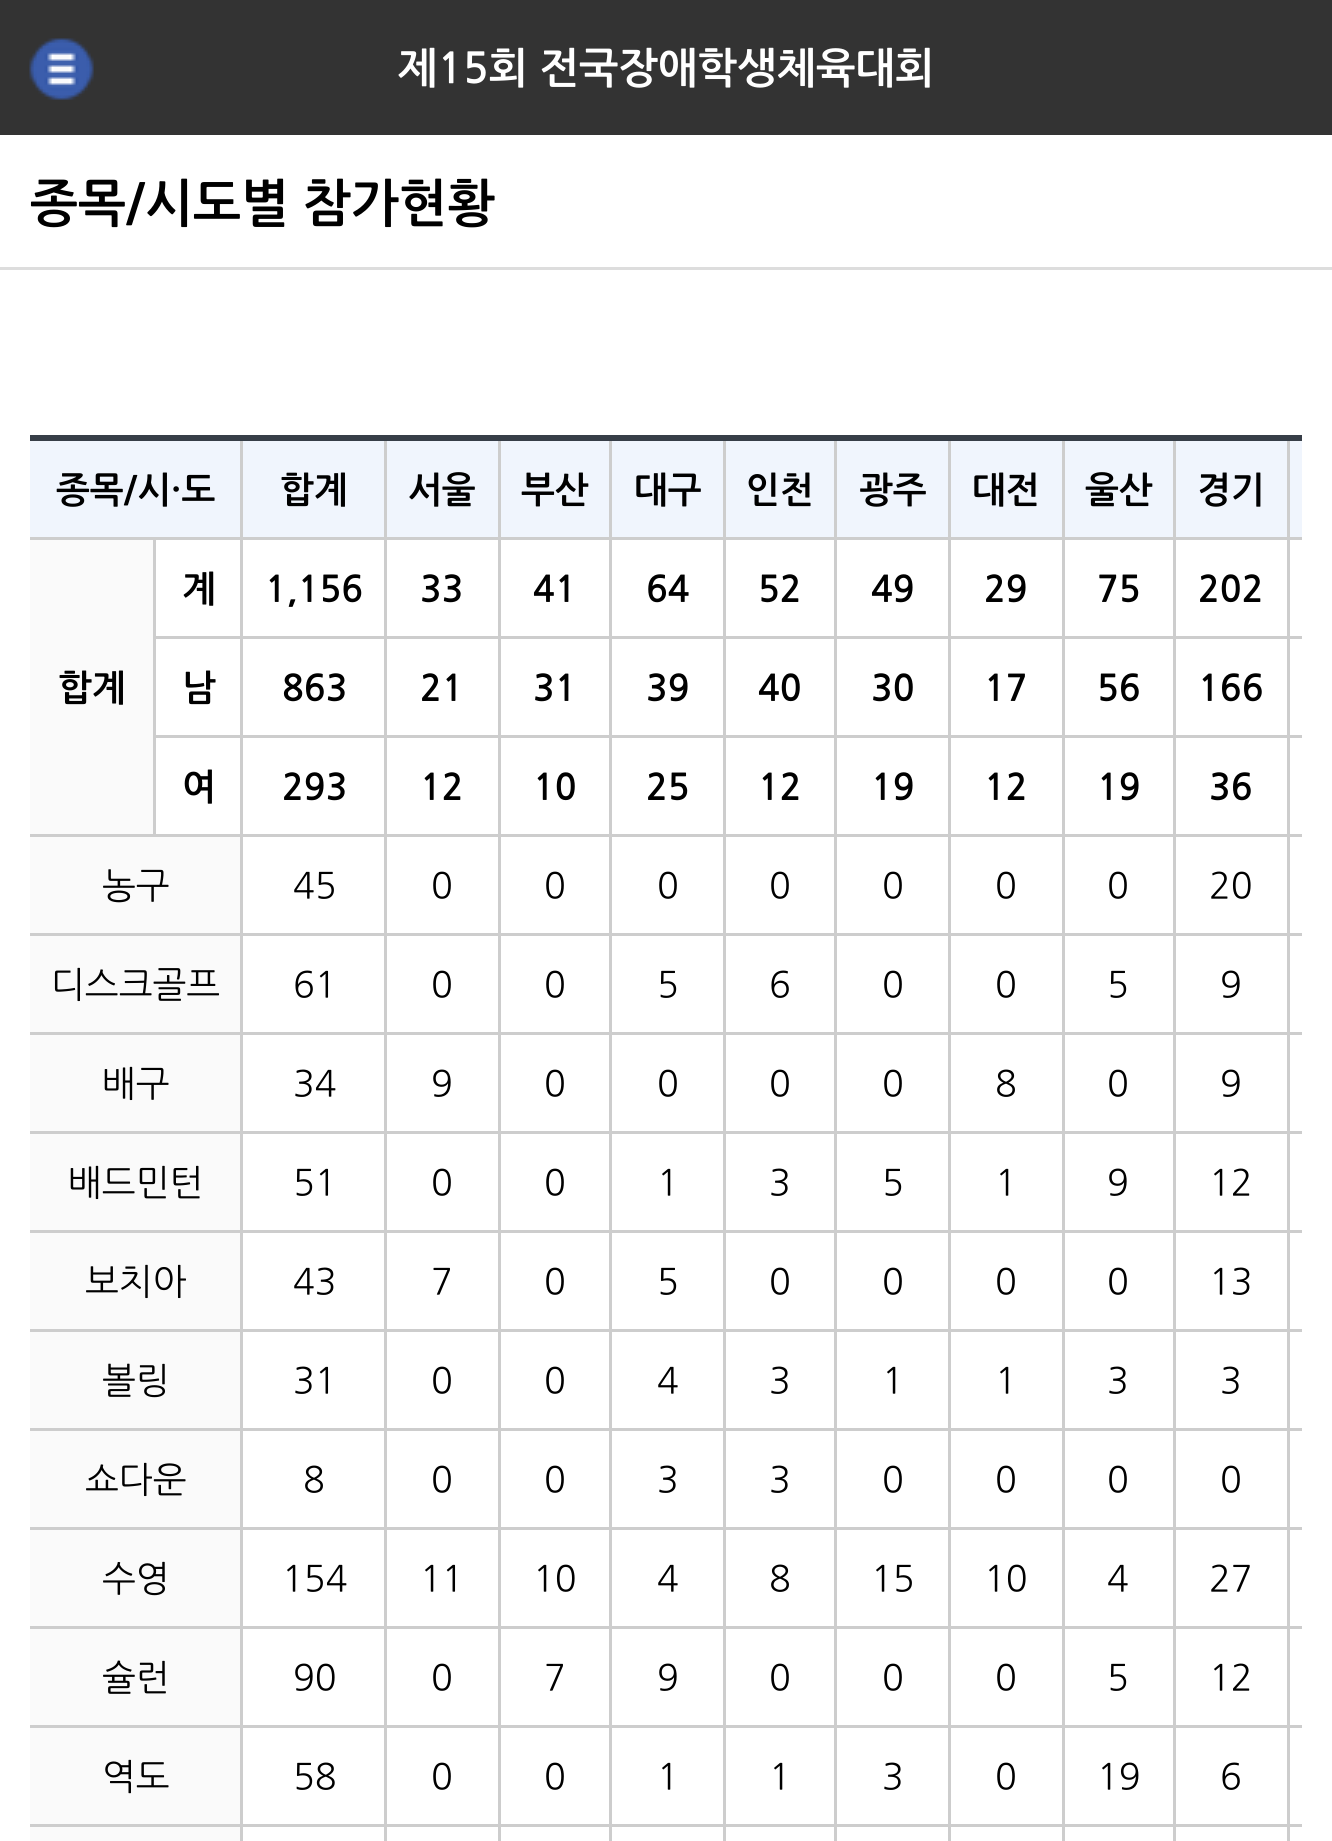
#include <cairo.h>
#include <math.h>
#include <stddef.h>

typedef struct { double x, y; const char *s; } line_t;
typedef struct { double x, y, w, h; unsigned color; } box_t;

static void ink(cairo_t *ctx, unsigned color) {
    cairo_set_source_rgb(ctx, (color >> 16) / 255.0, (color >> 8 & 255) / 255.0, (color & 255) / 255.0);
}

static void paste(cairo_t *ctx, const char *path, double x, double y, double w, double h) {
    cairo_surface_t *image = cairo_image_surface_create_from_png(path);
    cairo_save(ctx);
    cairo_set_source_surface(ctx, image, x, y);
    cairo_rectangle(ctx, x, y, w, h);
    cairo_fill(ctx);
    cairo_restore(ctx);
    cairo_surface_destroy(image);
}

int main(void) {
    cairo_surface_t *surface = cairo_image_surface_create(CAIRO_FORMAT_RGB24, 1332, 1841);
    cairo_t *ctx = cairo_create(surface);
    cairo_font_options_t *options = cairo_font_options_create();
    cairo_font_options_set_hint_metrics(options, CAIRO_HINT_METRICS_OFF);
    cairo_font_options_set_hint_style(options, CAIRO_HINT_STYLE_NONE);
    cairo_set_font_options(ctx, options);
    cairo_set_miter_limit(ctx, 4);
    ink(ctx, 0xFFFFFF);
    cairo_paint(ctx);
    ink(ctx, 0x333333);
    cairo_rectangle(ctx, 0, 0, 1332, 135);
    cairo_fill(ctx);
    paste(ctx, "media/1.png", 29, 38, 65, 62);
    cairo_select_font_face(ctx, "NanumGothic", CAIRO_FONT_SLANT_NORMAL, CAIRO_FONT_WEIGHT_BOLD);
    cairo_set_font_size(ctx, 42);
    ink(ctx, 0xFFFFFF);
    cairo_move_to(ctx, 398, 81);
    cairo_show_text(ctx, "제15회 전국장애학생체육대회");
    cairo_set_font_size(ctx, 51);
    ink(ctx, 0x000000);
    cairo_move_to(ctx, 30, 219);
    cairo_show_text(ctx, "종목/시도별 참가현황");
    {
        static const box_t items[] = {
            {0, 267, 1332, 3, 0xDDDDDD},
            {30, 435, 1272, 6, 0x373E48},
            {30, 441, 210, 96, 0xF0F5FD},
            {1287, 537, 15, 3, 0xCDCDCD},
            {1287, 441, 3, 99, 0xCDCDCD},
            {1173, 537, 117, 3, 0xCDCDCD},
            {1173, 441, 3, 99, 0xCDCDCD},
            {1062, 537, 114, 3, 0xCDCDCD},
            {1062, 441, 3, 99, 0xCDCDCD},
            {948, 537, 117, 3, 0xCDCDCD},
            {948, 441, 3, 99, 0xCDCDCD},
            {834, 537, 117, 3, 0xCDCDCD},
            {834, 441, 3, 99, 0xCDCDCD},
            {723, 537, 114, 3, 0xCDCDCD},
            {723, 441, 3, 99, 0xCDCDCD},
            {609, 537, 117, 3, 0xCDCDCD},
            {609, 441, 3, 99, 0xCDCDCD},
            {498, 537, 114, 3, 0xCDCDCD},
            {498, 441, 3, 99, 0xCDCDCD},
            {384, 537, 117, 3, 0xCDCDCD},
            {384, 441, 3, 99, 0xCDCDCD},
            {240, 537, 147, 3, 0xCDCDCD},
            {240, 441, 3, 99, 0xCDCDCD},
            {30, 537, 213, 3, 0xCDCDCD},
        };
        for (size_t i = 0; i < sizeof items / sizeof *items; i++) {
            ink(ctx, items[i].color);
            cairo_rectangle(ctx, items[i].x, items[i].y, items[i].w, items[i].h);
            cairo_fill(ctx);
        }
    }
    cairo_set_font_size(ctx, 36);
    ink(ctx, 0x000000);
    cairo_move_to(ctx, 56, 501);
    cairo_show_text(ctx, "종목/시·도");
    ink(ctx, 0xF0F5FD);
    cairo_rectangle(ctx, 243, 441, 141, 96);
    cairo_fill(ctx);
    ink(ctx, 0x000000);
    cairo_move_to(ctx, 280, 501);
    cairo_show_text(ctx, "합계");
    ink(ctx, 0xF0F5FD);
    cairo_rectangle(ctx, 387, 441, 111, 96);
    cairo_fill(ctx);
    ink(ctx, 0x000000);
    cairo_move_to(ctx, 408, 501);
    cairo_show_text(ctx, "서울");
    ink(ctx, 0xF0F5FD);
    cairo_rectangle(ctx, 501, 441, 108, 96);
    cairo_fill(ctx);
    ink(ctx, 0x000000);
    cairo_move_to(ctx, 521, 501);
    cairo_show_text(ctx, "부산");
    ink(ctx, 0xF0F5FD);
    cairo_rectangle(ctx, 612, 441, 111, 96);
    cairo_fill(ctx);
    ink(ctx, 0x000000);
    cairo_move_to(ctx, 634, 501);
    cairo_show_text(ctx, "대구");
    ink(ctx, 0xF0F5FD);
    cairo_rectangle(ctx, 726, 441, 108, 96);
    cairo_fill(ctx);
    ink(ctx, 0x000000);
    cairo_move_to(ctx, 746, 501);
    cairo_show_text(ctx, "인천");
    ink(ctx, 0xF0F5FD);
    cairo_rectangle(ctx, 837, 441, 111, 96);
    cairo_fill(ctx);
    ink(ctx, 0x000000);
    cairo_move_to(ctx, 859, 501);
    cairo_show_text(ctx, "광주");
    ink(ctx, 0xF0F5FD);
    cairo_rectangle(ctx, 951, 441, 111, 96);
    cairo_fill(ctx);
    ink(ctx, 0x000000);
    cairo_move_to(ctx, 972, 501);
    cairo_show_text(ctx, "대전");
    ink(ctx, 0xF0F5FD);
    cairo_rectangle(ctx, 1065, 441, 108, 96);
    cairo_fill(ctx);
    ink(ctx, 0x000000);
    cairo_move_to(ctx, 1085, 501);
    cairo_show_text(ctx, "울산");
    ink(ctx, 0xF0F5FD);
    cairo_rectangle(ctx, 1176, 441, 111, 96);
    cairo_fill(ctx);
    ink(ctx, 0x000000);
    cairo_move_to(ctx, 1197, 501);
    cairo_show_text(ctx, "경기");
    {
        static const box_t items[] = {
            {1290, 441, 12, 96, 0xF0F5FD},
            {1287, 1824, 3, 17, 0xCDCDCD},
            {1287, 1824, 15, 3, 0xCDCDCD},
            {1287, 1725, 3, 102, 0xCDCDCD},
            {1287, 1725, 15, 3, 0xCDCDCD},
            {1287, 1626, 3, 102, 0xCDCDCD},
            {1287, 1626, 15, 3, 0xCDCDCD},
            {1287, 1527, 3, 102, 0xCDCDCD},
            {1287, 1527, 15, 3, 0xCDCDCD},
            {1287, 1428, 3, 102, 0xCDCDCD},
            {1287, 1428, 15, 3, 0xCDCDCD},
            {1287, 1329, 3, 102, 0xCDCDCD},
            {1287, 1329, 15, 3, 0xCDCDCD},
            {1287, 1230, 3, 102, 0xCDCDCD},
            {1287, 1230, 15, 3, 0xCDCDCD},
            {1287, 1131, 3, 102, 0xCDCDCD},
            {1287, 1131, 15, 3, 0xCDCDCD},
            {1287, 1032, 3, 102, 0xCDCDCD},
            {1287, 1032, 15, 3, 0xCDCDCD},
            {1287, 933, 3, 102, 0xCDCDCD},
            {1287, 933, 15, 3, 0xCDCDCD},
            {1287, 834, 3, 102, 0xCDCDCD},
            {1287, 834, 15, 3, 0xCDCDCD},
            {1287, 735, 3, 102, 0xCDCDCD},
            {1287, 735, 15, 3, 0xCDCDCD},
            {1287, 636, 3, 102, 0xCDCDCD},
            {1287, 636, 15, 3, 0xCDCDCD},
            {1287, 540, 3, 99, 0xCDCDCD},
            {1173, 1824, 3, 17, 0xCDCDCD},
            {1173, 1824, 117, 3, 0xCDCDCD},
            {1173, 1725, 3, 102, 0xCDCDCD},
            {1173, 1725, 117, 3, 0xCDCDCD},
            {1173, 1626, 3, 102, 0xCDCDCD},
            {1173, 1626, 117, 3, 0xCDCDCD},
            {1173, 1527, 3, 102, 0xCDCDCD},
            {1173, 1527, 117, 3, 0xCDCDCD},
            {1173, 1428, 3, 102, 0xCDCDCD},
            {1173, 1428, 117, 3, 0xCDCDCD},
            {1173, 1329, 3, 102, 0xCDCDCD},
            {1173, 1329, 117, 3, 0xCDCDCD},
            {1173, 1230, 3, 102, 0xCDCDCD},
            {1173, 1230, 117, 3, 0xCDCDCD},
            {1173, 1131, 3, 102, 0xCDCDCD},
            {1173, 1131, 117, 3, 0xCDCDCD},
            {1173, 1032, 3, 102, 0xCDCDCD},
            {1173, 1032, 117, 3, 0xCDCDCD},
            {1173, 933, 3, 102, 0xCDCDCD},
            {1173, 933, 117, 3, 0xCDCDCD},
            {1173, 834, 3, 102, 0xCDCDCD},
            {1173, 834, 117, 3, 0xCDCDCD},
            {1173, 735, 3, 102, 0xCDCDCD},
            {1173, 735, 117, 3, 0xCDCDCD},
            {1173, 636, 3, 102, 0xCDCDCD},
            {1173, 636, 117, 3, 0xCDCDCD},
            {1173, 540, 3, 99, 0xCDCDCD},
            {1062, 1824, 3, 17, 0xCDCDCD},
            {1062, 1824, 114, 3, 0xCDCDCD},
            {1062, 1725, 3, 102, 0xCDCDCD},
            {1062, 1725, 114, 3, 0xCDCDCD},
            {1062, 1626, 3, 102, 0xCDCDCD},
            {1062, 1626, 114, 3, 0xCDCDCD},
            {1062, 1527, 3, 102, 0xCDCDCD},
            {1062, 1527, 114, 3, 0xCDCDCD},
            {1062, 1428, 3, 102, 0xCDCDCD},
            {1062, 1428, 114, 3, 0xCDCDCD},
            {1062, 1329, 3, 102, 0xCDCDCD},
            {1062, 1329, 114, 3, 0xCDCDCD},
            {1062, 1230, 3, 102, 0xCDCDCD},
            {1062, 1230, 114, 3, 0xCDCDCD},
            {1062, 1131, 3, 102, 0xCDCDCD},
            {1062, 1131, 114, 3, 0xCDCDCD},
            {1062, 1032, 3, 102, 0xCDCDCD},
            {1062, 1032, 114, 3, 0xCDCDCD},
            {1062, 933, 3, 102, 0xCDCDCD},
            {1062, 933, 114, 3, 0xCDCDCD},
            {1062, 834, 3, 102, 0xCDCDCD},
            {1062, 834, 114, 3, 0xCDCDCD},
            {1062, 735, 3, 102, 0xCDCDCD},
            {1062, 735, 114, 3, 0xCDCDCD},
            {1062, 636, 3, 102, 0xCDCDCD},
            {1062, 636, 114, 3, 0xCDCDCD},
            {1062, 540, 3, 99, 0xCDCDCD},
            {948, 1824, 3, 17, 0xCDCDCD},
            {948, 1824, 117, 3, 0xCDCDCD},
            {948, 1725, 3, 102, 0xCDCDCD},
            {948, 1725, 117, 3, 0xCDCDCD},
            {948, 1626, 3, 102, 0xCDCDCD},
            {948, 1626, 117, 3, 0xCDCDCD},
            {948, 1527, 3, 102, 0xCDCDCD},
            {948, 1527, 117, 3, 0xCDCDCD},
            {948, 1428, 3, 102, 0xCDCDCD},
            {948, 1428, 117, 3, 0xCDCDCD},
            {948, 1329, 3, 102, 0xCDCDCD},
            {948, 1329, 117, 3, 0xCDCDCD},
            {948, 1230, 3, 102, 0xCDCDCD},
            {948, 1230, 117, 3, 0xCDCDCD},
            {948, 1131, 3, 102, 0xCDCDCD},
            {948, 1131, 117, 3, 0xCDCDCD},
            {948, 1032, 3, 102, 0xCDCDCD},
            {948, 1032, 117, 3, 0xCDCDCD},
            {948, 933, 3, 102, 0xCDCDCD},
            {948, 933, 117, 3, 0xCDCDCD},
            {948, 834, 3, 102, 0xCDCDCD},
            {948, 834, 117, 3, 0xCDCDCD},
            {948, 735, 3, 102, 0xCDCDCD},
            {948, 735, 117, 3, 0xCDCDCD},
            {948, 636, 3, 102, 0xCDCDCD},
            {948, 636, 117, 3, 0xCDCDCD},
            {948, 540, 3, 99, 0xCDCDCD},
            {834, 1824, 3, 17, 0xCDCDCD},
            {834, 1824, 117, 3, 0xCDCDCD},
            {834, 1725, 3, 102, 0xCDCDCD},
            {834, 1725, 117, 3, 0xCDCDCD},
            {834, 1626, 3, 102, 0xCDCDCD},
            {834, 1626, 117, 3, 0xCDCDCD},
            {834, 1527, 3, 102, 0xCDCDCD},
            {834, 1527, 117, 3, 0xCDCDCD},
            {834, 1428, 3, 102, 0xCDCDCD},
            {834, 1428, 117, 3, 0xCDCDCD},
            {834, 1329, 3, 102, 0xCDCDCD},
            {834, 1329, 117, 3, 0xCDCDCD},
            {834, 1230, 3, 102, 0xCDCDCD},
            {834, 1230, 117, 3, 0xCDCDCD},
            {834, 1131, 3, 102, 0xCDCDCD},
            {834, 1131, 117, 3, 0xCDCDCD},
            {834, 1032, 3, 102, 0xCDCDCD},
            {834, 1032, 117, 3, 0xCDCDCD},
            {834, 933, 3, 102, 0xCDCDCD},
            {834, 933, 117, 3, 0xCDCDCD},
            {834, 834, 3, 102, 0xCDCDCD},
            {834, 834, 117, 3, 0xCDCDCD},
            {834, 735, 3, 102, 0xCDCDCD},
            {834, 735, 117, 3, 0xCDCDCD},
            {834, 636, 3, 102, 0xCDCDCD},
            {834, 636, 117, 3, 0xCDCDCD},
            {834, 540, 3, 99, 0xCDCDCD},
            {723, 1824, 3, 17, 0xCDCDCD},
            {723, 1824, 114, 3, 0xCDCDCD},
            {723, 1725, 3, 102, 0xCDCDCD},
            {723, 1725, 114, 3, 0xCDCDCD},
            {723, 1626, 3, 102, 0xCDCDCD},
            {723, 1626, 114, 3, 0xCDCDCD},
            {723, 1527, 3, 102, 0xCDCDCD},
            {723, 1527, 114, 3, 0xCDCDCD},
            {723, 1428, 3, 102, 0xCDCDCD},
            {723, 1428, 114, 3, 0xCDCDCD},
            {723, 1329, 3, 102, 0xCDCDCD},
            {723, 1329, 114, 3, 0xCDCDCD},
            {723, 1230, 3, 102, 0xCDCDCD},
            {723, 1230, 114, 3, 0xCDCDCD},
            {723, 1131, 3, 102, 0xCDCDCD},
            {723, 1131, 114, 3, 0xCDCDCD},
            {723, 1032, 3, 102, 0xCDCDCD},
            {723, 1032, 114, 3, 0xCDCDCD},
            {723, 933, 3, 102, 0xCDCDCD},
            {723, 933, 114, 3, 0xCDCDCD},
            {723, 834, 3, 102, 0xCDCDCD},
            {723, 834, 114, 3, 0xCDCDCD},
            {723, 735, 3, 102, 0xCDCDCD},
            {723, 735, 114, 3, 0xCDCDCD},
            {723, 636, 3, 102, 0xCDCDCD},
            {723, 636, 114, 3, 0xCDCDCD},
            {723, 540, 3, 99, 0xCDCDCD},
            {609, 1824, 3, 17, 0xCDCDCD},
            {609, 1824, 117, 3, 0xCDCDCD},
            {609, 1725, 3, 102, 0xCDCDCD},
            {609, 1725, 117, 3, 0xCDCDCD},
            {609, 1626, 3, 102, 0xCDCDCD},
            {609, 1626, 117, 3, 0xCDCDCD},
            {609, 1527, 3, 102, 0xCDCDCD},
            {609, 1527, 117, 3, 0xCDCDCD},
            {609, 1428, 3, 102, 0xCDCDCD},
            {609, 1428, 117, 3, 0xCDCDCD},
            {609, 1329, 3, 102, 0xCDCDCD},
            {609, 1329, 117, 3, 0xCDCDCD},
            {609, 1230, 3, 102, 0xCDCDCD},
            {609, 1230, 117, 3, 0xCDCDCD},
            {609, 1131, 3, 102, 0xCDCDCD},
            {609, 1131, 117, 3, 0xCDCDCD},
            {609, 1032, 3, 102, 0xCDCDCD},
            {609, 1032, 117, 3, 0xCDCDCD},
            {609, 933, 3, 102, 0xCDCDCD},
            {609, 933, 117, 3, 0xCDCDCD},
            {609, 834, 3, 102, 0xCDCDCD},
            {609, 834, 117, 3, 0xCDCDCD},
            {609, 735, 3, 102, 0xCDCDCD},
            {609, 735, 117, 3, 0xCDCDCD},
            {609, 636, 3, 102, 0xCDCDCD},
            {609, 636, 117, 3, 0xCDCDCD},
            {609, 540, 3, 99, 0xCDCDCD},
            {498, 1824, 3, 17, 0xCDCDCD},
            {498, 1824, 114, 3, 0xCDCDCD},
            {498, 1725, 3, 102, 0xCDCDCD},
            {498, 1725, 114, 3, 0xCDCDCD},
            {498, 1626, 3, 102, 0xCDCDCD},
            {498, 1626, 114, 3, 0xCDCDCD},
            {498, 1527, 3, 102, 0xCDCDCD},
            {498, 1527, 114, 3, 0xCDCDCD},
            {498, 1428, 3, 102, 0xCDCDCD},
            {498, 1428, 114, 3, 0xCDCDCD},
            {498, 1329, 3, 102, 0xCDCDCD},
            {498, 1329, 114, 3, 0xCDCDCD},
            {498, 1230, 3, 102, 0xCDCDCD},
            {498, 1230, 114, 3, 0xCDCDCD},
            {498, 1131, 3, 102, 0xCDCDCD},
            {498, 1131, 114, 3, 0xCDCDCD},
            {498, 1032, 3, 102, 0xCDCDCD},
            {498, 1032, 114, 3, 0xCDCDCD},
            {498, 933, 3, 102, 0xCDCDCD},
            {498, 933, 114, 3, 0xCDCDCD},
            {498, 834, 3, 102, 0xCDCDCD},
            {498, 834, 114, 3, 0xCDCDCD},
            {498, 735, 3, 102, 0xCDCDCD},
            {498, 735, 114, 3, 0xCDCDCD},
            {498, 636, 3, 102, 0xCDCDCD},
            {498, 636, 114, 3, 0xCDCDCD},
            {498, 540, 3, 99, 0xCDCDCD},
            {384, 1824, 3, 17, 0xCDCDCD},
            {384, 1824, 117, 3, 0xCDCDCD},
            {384, 1725, 3, 102, 0xCDCDCD},
            {384, 1725, 117, 3, 0xCDCDCD},
            {384, 1626, 3, 102, 0xCDCDCD},
            {384, 1626, 117, 3, 0xCDCDCD},
            {384, 1527, 3, 102, 0xCDCDCD},
            {384, 1527, 117, 3, 0xCDCDCD},
            {384, 1428, 3, 102, 0xCDCDCD},
            {384, 1428, 117, 3, 0xCDCDCD},
            {384, 1329, 3, 102, 0xCDCDCD},
            {384, 1329, 117, 3, 0xCDCDCD},
            {384, 1230, 3, 102, 0xCDCDCD},
            {384, 1230, 117, 3, 0xCDCDCD},
            {384, 1131, 3, 102, 0xCDCDCD},
            {384, 1131, 117, 3, 0xCDCDCD},
            {384, 1032, 3, 102, 0xCDCDCD},
            {384, 1032, 117, 3, 0xCDCDCD},
            {384, 933, 3, 102, 0xCDCDCD},
            {384, 933, 117, 3, 0xCDCDCD},
            {384, 834, 3, 102, 0xCDCDCD},
            {384, 834, 117, 3, 0xCDCDCD},
            {384, 735, 3, 102, 0xCDCDCD},
            {384, 735, 117, 3, 0xCDCDCD},
            {384, 636, 3, 102, 0xCDCDCD},
            {384, 636, 117, 3, 0xCDCDCD},
            {384, 540, 3, 99, 0xCDCDCD},
            {240, 1824, 3, 17, 0xCDCDCD},
            {240, 1824, 147, 3, 0xCDCDCD},
            {240, 1725, 3, 102, 0xCDCDCD},
            {240, 1725, 147, 3, 0xCDCDCD},
            {240, 1626, 3, 102, 0xCDCDCD},
            {240, 1626, 147, 3, 0xCDCDCD},
            {240, 1527, 3, 102, 0xCDCDCD},
            {240, 1527, 147, 3, 0xCDCDCD},
            {240, 1428, 3, 102, 0xCDCDCD},
            {240, 1428, 147, 3, 0xCDCDCD},
            {240, 1329, 3, 102, 0xCDCDCD},
            {240, 1329, 147, 3, 0xCDCDCD},
            {240, 1230, 3, 102, 0xCDCDCD},
            {240, 1230, 147, 3, 0xCDCDCD},
            {240, 1131, 3, 102, 0xCDCDCD},
            {240, 1131, 147, 3, 0xCDCDCD},
            {240, 1032, 3, 102, 0xCDCDCD},
            {240, 1032, 147, 3, 0xCDCDCD},
            {240, 933, 3, 102, 0xCDCDCD},
            {240, 933, 147, 3, 0xCDCDCD},
            {240, 834, 3, 102, 0xCDCDCD},
            {240, 834, 147, 3, 0xCDCDCD},
            {240, 735, 3, 102, 0xCDCDCD},
            {240, 735, 147, 3, 0xCDCDCD},
            {240, 636, 3, 102, 0xCDCDCD},
            {240, 636, 147, 3, 0xCDCDCD},
            {240, 540, 3, 99, 0xCDCDCD},
            {153, 834, 90, 3, 0xCDCDCD},
            {153, 735, 3, 102, 0xCDCDCD},
            {153, 735, 90, 3, 0xCDCDCD},
            {153, 636, 3, 102, 0xCDCDCD},
            {153, 636, 90, 3, 0xCDCDCD},
            {153, 540, 3, 99, 0xCDCDCD},
        };
        for (size_t i = 0; i < sizeof items / sizeof *items; i++) {
            ink(ctx, items[i].color);
            cairo_rectangle(ctx, items[i].x, items[i].y, items[i].w, items[i].h);
            cairo_fill(ctx);
        }
    }
    ink(ctx, 0x000000);
    {
        static const line_t items[] = {
            {182, 600, "계"},
            {265, 600, "1,156"},
            {420, 600, "33"},
            {533, 600, "41"},
            {646, 600, "64"},
            {758, 600, "52"},
            {871, 600, "49"},
            {984, 600, "29"},
            {1097, 600, "75"},
            {1198, 600, "202"},
        };
        for (size_t i = 0; i < sizeof items / sizeof *items; i++) {
            cairo_move_to(ctx, items[i].x, items[i].y);
            cairo_show_text(ctx, items[i].s);
        }
    }
    ink(ctx, 0xFAFAFA);
    cairo_rectangle(ctx, 30, 540, 123, 294);
    cairo_fill(ctx);
    ink(ctx, 0xCDCDCD);
    cairo_rectangle(ctx, 30, 834, 126, 3);
    cairo_fill(ctx);
    ink(ctx, 0x000000);
    {
        static const line_t items[] = {
            {58, 699, "합계"},
            {182, 699, "남"},
            {282, 699, "863"},
            {420, 699, "21"},
            {533, 699, "31"},
            {646, 699, "39"},
            {758, 699, "40"},
            {871, 699, "30"},
            {984, 699, "17"},
            {1097, 699, "56"},
            {1198, 699, "166"},
            {182, 798, "여"},
            {282, 798, "293"},
            {420, 798, "12"},
            {533, 798, "10"},
            {646, 798, "25"},
            {758, 798, "12"},
            {871, 798, "19"},
            {984, 798, "12"},
            {1097, 798, "19"},
            {1209, 798, "36"},
        };
        for (size_t i = 0; i < sizeof items / sizeof *items; i++) {
            cairo_move_to(ctx, items[i].x, items[i].y);
            cairo_show_text(ctx, items[i].s);
        }
    }
    ink(ctx, 0xFAFAFA);
    cairo_rectangle(ctx, 30, 837, 210, 96);
    cairo_fill(ctx);
    ink(ctx, 0xCDCDCD);
    cairo_rectangle(ctx, 30, 933, 213, 3);
    cairo_fill(ctx);
    cairo_select_font_face(ctx, "NanumGothic", CAIRO_FONT_SLANT_NORMAL, CAIRO_FONT_WEIGHT_NORMAL);
    ink(ctx, 0x000000);
    {
        static const line_t items[] = {
            {102, 897, "농구"},
            {293, 897, "45"},
            {431, 897, "0"},
            {544, 897, "0"},
            {657, 897, "0"},
            {769, 897, "0"},
            {882, 897, "0"},
            {995, 897, "0"},
            {1107, 897, "0"},
            {1209, 897, "20"},
        };
        for (size_t i = 0; i < sizeof items / sizeof *items; i++) {
            cairo_move_to(ctx, items[i].x, items[i].y);
            cairo_show_text(ctx, items[i].s);
        }
    }
    ink(ctx, 0xFAFAFA);
    cairo_rectangle(ctx, 30, 936, 210, 96);
    cairo_fill(ctx);
    ink(ctx, 0xCDCDCD);
    cairo_rectangle(ctx, 30, 1032, 213, 3);
    cairo_fill(ctx);
    ink(ctx, 0x000000);
    {
        static const line_t items[] = {
            {51, 996, "디스크골프"},
            {293, 996, "61"},
            {431, 996, "0"},
            {544, 996, "0"},
            {657, 996, "5"},
            {769, 996, "6"},
            {882, 996, "0"},
            {995, 996, "0"},
            {1107, 996, "5"},
            {1220, 996, "9"},
        };
        for (size_t i = 0; i < sizeof items / sizeof *items; i++) {
            cairo_move_to(ctx, items[i].x, items[i].y);
            cairo_show_text(ctx, items[i].s);
        }
    }
    ink(ctx, 0xFAFAFA);
    cairo_rectangle(ctx, 30, 1035, 210, 96);
    cairo_fill(ctx);
    ink(ctx, 0xCDCDCD);
    cairo_rectangle(ctx, 30, 1131, 213, 3);
    cairo_fill(ctx);
    ink(ctx, 0x000000);
    {
        static const line_t items[] = {
            {102, 1095, "배구"},
            {293, 1095, "34"},
            {431, 1095, "9"},
            {544, 1095, "0"},
            {657, 1095, "0"},
            {769, 1095, "0"},
            {882, 1095, "0"},
            {995, 1095, "8"},
            {1107, 1095, "0"},
            {1220, 1095, "9"},
        };
        for (size_t i = 0; i < sizeof items / sizeof *items; i++) {
            cairo_move_to(ctx, items[i].x, items[i].y);
            cairo_show_text(ctx, items[i].s);
        }
    }
    ink(ctx, 0xFAFAFA);
    cairo_rectangle(ctx, 30, 1134, 210, 96);
    cairo_fill(ctx);
    ink(ctx, 0xCDCDCD);
    cairo_rectangle(ctx, 30, 1230, 213, 3);
    cairo_fill(ctx);
    ink(ctx, 0x000000);
    {
        static const line_t items[] = {
            {68, 1194, "배드민턴"},
            {293, 1194, "51"},
            {431, 1194, "0"},
            {544, 1194, "0"},
            {657, 1194, "1"},
            {769, 1194, "3"},
            {882, 1194, "5"},
            {995, 1194, "1"},
            {1107, 1194, "9"},
            {1209, 1194, "12"},
        };
        for (size_t i = 0; i < sizeof items / sizeof *items; i++) {
            cairo_move_to(ctx, items[i].x, items[i].y);
            cairo_show_text(ctx, items[i].s);
        }
    }
    ink(ctx, 0xFAFAFA);
    cairo_rectangle(ctx, 30, 1233, 210, 96);
    cairo_fill(ctx);
    ink(ctx, 0xCDCDCD);
    cairo_rectangle(ctx, 30, 1329, 213, 3);
    cairo_fill(ctx);
    ink(ctx, 0x000000);
    {
        static const line_t items[] = {
            {85, 1293, "보치아"},
            {293, 1293, "43"},
            {431, 1293, "7"},
            {544, 1293, "0"},
            {657, 1293, "5"},
            {769, 1293, "0"},
            {882, 1293, "0"},
            {995, 1293, "0"},
            {1107, 1293, "0"},
            {1209, 1293, "13"},
        };
        for (size_t i = 0; i < sizeof items / sizeof *items; i++) {
            cairo_move_to(ctx, items[i].x, items[i].y);
            cairo_show_text(ctx, items[i].s);
        }
    }
    ink(ctx, 0xFAFAFA);
    cairo_rectangle(ctx, 30, 1332, 210, 96);
    cairo_fill(ctx);
    ink(ctx, 0xCDCDCD);
    cairo_rectangle(ctx, 30, 1428, 213, 3);
    cairo_fill(ctx);
    ink(ctx, 0x000000);
    {
        static const line_t items[] = {
            {102, 1392, "볼링"},
            {293, 1392, "31"},
            {431, 1392, "0"},
            {544, 1392, "0"},
            {657, 1392, "4"},
            {769, 1392, "3"},
            {882, 1392, "1"},
            {995, 1392, "1"},
            {1107, 1392, "3"},
            {1220, 1392, "3"},
        };
        for (size_t i = 0; i < sizeof items / sizeof *items; i++) {
            cairo_move_to(ctx, items[i].x, items[i].y);
            cairo_show_text(ctx, items[i].s);
        }
    }
    ink(ctx, 0xFAFAFA);
    cairo_rectangle(ctx, 30, 1431, 210, 96);
    cairo_fill(ctx);
    ink(ctx, 0xCDCDCD);
    cairo_rectangle(ctx, 30, 1527, 213, 3);
    cairo_fill(ctx);
    ink(ctx, 0x000000);
    {
        static const line_t items[] = {
            {85, 1491, "쇼다운"},
            {303, 1491, "8"},
            {431, 1491, "0"},
            {544, 1491, "0"},
            {657, 1491, "3"},
            {769, 1491, "3"},
            {882, 1491, "0"},
            {995, 1491, "0"},
            {1107, 1491, "0"},
            {1220, 1491, "0"},
        };
        for (size_t i = 0; i < sizeof items / sizeof *items; i++) {
            cairo_move_to(ctx, items[i].x, items[i].y);
            cairo_show_text(ctx, items[i].s);
        }
    }
    ink(ctx, 0xFAFAFA);
    cairo_rectangle(ctx, 30, 1530, 210, 96);
    cairo_fill(ctx);
    ink(ctx, 0xCDCDCD);
    cairo_rectangle(ctx, 30, 1626, 213, 3);
    cairo_fill(ctx);
    ink(ctx, 0x000000);
    {
        static const line_t items[] = {
            {102, 1590, "수영"},
            {282, 1590, "154"},
            {420, 1590, "11"},
            {533, 1590, "10"},
            {657, 1590, "4"},
            {769, 1590, "8"},
            {871, 1590, "15"},
            {984, 1590, "10"},
            {1107, 1590, "4"},
            {1209, 1590, "27"},
        };
        for (size_t i = 0; i < sizeof items / sizeof *items; i++) {
            cairo_move_to(ctx, items[i].x, items[i].y);
            cairo_show_text(ctx, items[i].s);
        }
    }
    ink(ctx, 0xFAFAFA);
    cairo_rectangle(ctx, 30, 1629, 210, 96);
    cairo_fill(ctx);
    ink(ctx, 0xCDCDCD);
    cairo_rectangle(ctx, 30, 1725, 213, 3);
    cairo_fill(ctx);
    ink(ctx, 0x000000);
    {
        static const line_t items[] = {
            {102, 1689, "슐런"},
            {293, 1689, "90"},
            {431, 1689, "0"},
            {544, 1689, "7"},
            {657, 1689, "9"},
            {769, 1689, "0"},
            {882, 1689, "0"},
            {995, 1689, "0"},
            {1107, 1689, "5"},
            {1209, 1689, "12"},
        };
        for (size_t i = 0; i < sizeof items / sizeof *items; i++) {
            cairo_move_to(ctx, items[i].x, items[i].y);
            cairo_show_text(ctx, items[i].s);
        }
    }
    ink(ctx, 0xFAFAFA);
    cairo_rectangle(ctx, 30, 1728, 210, 96);
    cairo_fill(ctx);
    ink(ctx, 0xCDCDCD);
    cairo_rectangle(ctx, 30, 1824, 213, 3);
    cairo_fill(ctx);
    ink(ctx, 0x000000);
    {
        static const line_t items[] = {
            {102, 1788, "역도"},
            {293, 1788, "58"},
            {431, 1788, "0"},
            {544, 1788, "0"},
            {657, 1788, "1"},
            {769, 1788, "1"},
            {882, 1788, "3"},
            {995, 1788, "0"},
            {1097, 1788, "19"},
            {1220, 1788, "6"},
        };
        for (size_t i = 0; i < sizeof items / sizeof *items; i++) {
            cairo_move_to(ctx, items[i].x, items[i].y);
            cairo_show_text(ctx, items[i].s);
        }
    }
    ink(ctx, 0xFAFAFA);
    cairo_rectangle(ctx, 30, 1827, 210, 14);
    cairo_fill(ctx);
    cairo_surface_write_to_png(surface, "image.png");
    cairo_font_options_destroy(options);
    cairo_destroy(ctx);
    cairo_surface_destroy(surface);
    return 0;
}
